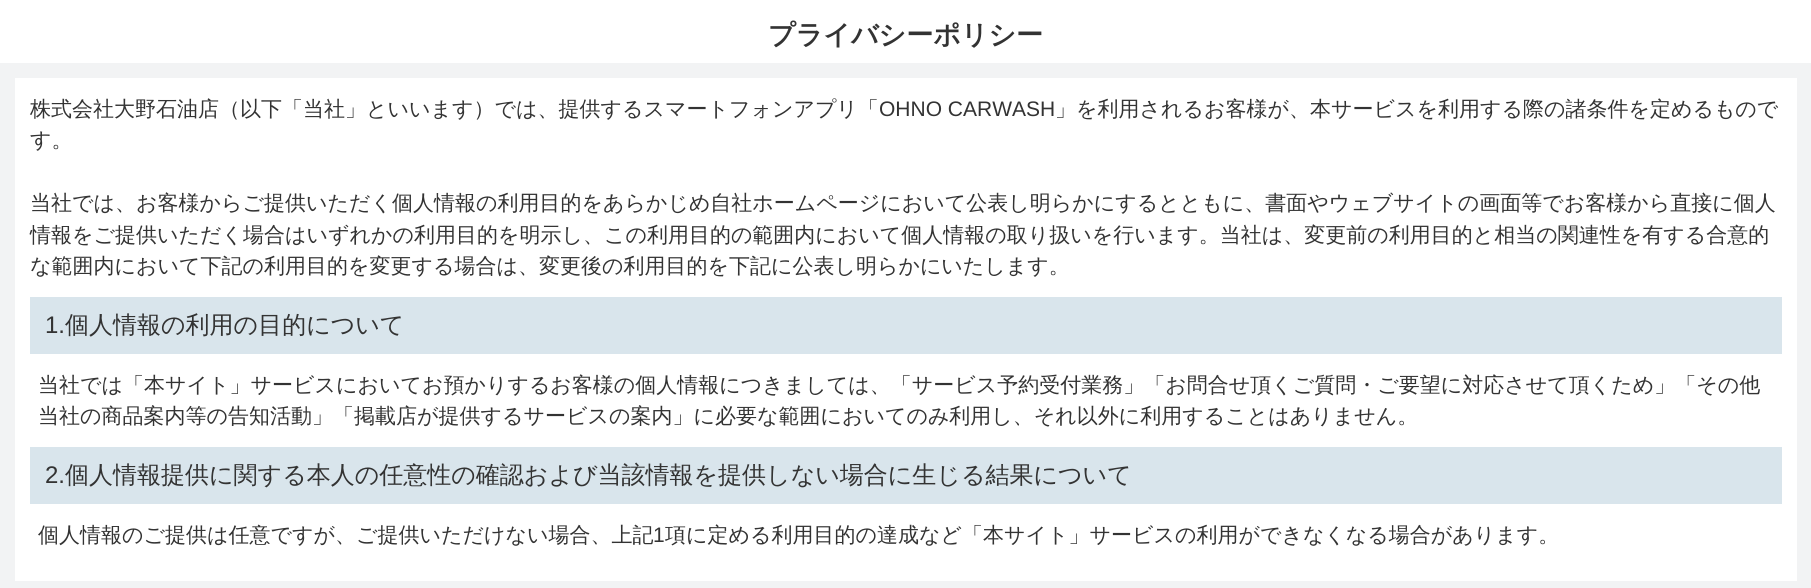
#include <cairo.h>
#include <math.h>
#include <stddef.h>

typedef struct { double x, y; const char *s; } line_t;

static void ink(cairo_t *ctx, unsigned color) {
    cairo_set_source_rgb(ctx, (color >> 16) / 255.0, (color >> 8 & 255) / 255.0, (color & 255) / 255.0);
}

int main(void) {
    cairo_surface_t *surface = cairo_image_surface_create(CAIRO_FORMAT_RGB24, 1811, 588);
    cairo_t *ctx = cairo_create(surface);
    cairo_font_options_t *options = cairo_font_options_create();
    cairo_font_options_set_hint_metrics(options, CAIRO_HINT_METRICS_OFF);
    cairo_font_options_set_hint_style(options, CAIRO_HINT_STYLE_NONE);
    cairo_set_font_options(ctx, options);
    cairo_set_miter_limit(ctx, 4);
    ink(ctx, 0xF2F3F4);
    cairo_paint(ctx);
    ink(ctx, 0xFFFFFF);
    cairo_rectangle(ctx, 0, 0, 1811, 63);
    cairo_fill(ctx);
    cairo_select_font_face(ctx, "WenQuanYi Zen Hei", CAIRO_FONT_SLANT_NORMAL, CAIRO_FONT_WEIGHT_BOLD);
    cairo_set_font_size(ctx, 27);
    ink(ctx, 0x333333);
    cairo_move_to(ctx, 768, 44);
    cairo_show_text(ctx, "プライバシーポリシー");
    ink(ctx, 0xFFFFFF);
    cairo_rectangle(ctx, 15, 78, 1782, 503);
    cairo_fill(ctx);
    cairo_select_font_face(ctx, "WenQuanYi Zen Hei Medium", CAIRO_FONT_SLANT_NORMAL, CAIRO_FONT_WEIGHT_NORMAL);
    cairo_set_font_size(ctx, 21);
    ink(ctx, 0x333333);
    cairo_move_to(ctx, 30, 116);
    cairo_show_text(ctx, "株式会社大野石油店（以下「当社」といいます）では、提供するスマートフォンアプリ「");
    cairo_select_font_face(ctx, "Liberation Sans", CAIRO_FONT_SLANT_NORMAL, CAIRO_FONT_WEIGHT_NORMAL);
    cairo_move_to(ctx, 879, 116);
    cairo_show_text(ctx, "OHNO CARWASH");
    cairo_select_font_face(ctx, "WenQuanYi Zen Hei Medium", CAIRO_FONT_SLANT_NORMAL, CAIRO_FONT_WEIGHT_NORMAL);
    {
        static const line_t items[] = {
            {1055, 116, "」を利用されるお客様が、本サービスを利用する際の諸条件を定めるもので"},
            {30, 147, "す。"},
            {30, 210, "当社では、お客様からご提供いただく個人情報の利用目的をあらかじめ自社ホームページにおいて公表し明らかにするとともに、書面やウェブサイトの画面等でお客様から直接に個人"},
            {30, 242, "情報をご提供いただく場合はいずれかの利用目的を明示し、この利用目的の範囲内において個人情報の取り扱いを行います。当社は、変更前の利用目的と相当の関連性を有する合意的"},
            {30, 273, "な範囲内において下記の利用目的を変更する場合は、変更後の利用目的を下記に公表し明らかにいたします。"},
        };
        for (size_t i = 0; i < sizeof items / sizeof *items; i++) {
            cairo_move_to(ctx, items[i].x, items[i].y);
            cairo_show_text(ctx, items[i].s);
        }
    }
    ink(ctx, 0xD9E5EC);
    cairo_rectangle(ctx, 30, 297, 1752, 57);
    cairo_fill(ctx);
    cairo_select_font_face(ctx, "Liberation Sans", CAIRO_FONT_SLANT_NORMAL, CAIRO_FONT_WEIGHT_NORMAL);
    cairo_set_font_size(ctx, 24);
    ink(ctx, 0x333333);
    cairo_move_to(ctx, 45, 333);
    cairo_show_text(ctx, "1.");
    cairo_select_font_face(ctx, "WenQuanYi Zen Hei Medium", CAIRO_FONT_SLANT_NORMAL, CAIRO_FONT_WEIGHT_NORMAL);
    cairo_move_to(ctx, 65, 333);
    cairo_show_text(ctx, "個人情報の利用の目的について");
    cairo_set_font_size(ctx, 21);
    cairo_move_to(ctx, 38, 392);
    cairo_show_text(ctx, "当社では「本サイト」サービスにおいてお預かりするお客様の個人情報につきましては、「サービス予約受付業務」「お問合せ頂くご質問・ご要望に対応させて頂くため」「その他");
    cairo_move_to(ctx, 38, 423);
    cairo_show_text(ctx, "当社の商品案内等の告知活動」「掲載店が提供するサービスの案内」に必要な範囲においてのみ利用し、それ以外に利用することはありません。");
    ink(ctx, 0xD9E5EC);
    cairo_rectangle(ctx, 30, 447, 1752, 57);
    cairo_fill(ctx);
    cairo_select_font_face(ctx, "Liberation Sans", CAIRO_FONT_SLANT_NORMAL, CAIRO_FONT_WEIGHT_NORMAL);
    cairo_set_font_size(ctx, 24);
    ink(ctx, 0x333333);
    cairo_move_to(ctx, 45, 483);
    cairo_show_text(ctx, "2.");
    cairo_select_font_face(ctx, "WenQuanYi Zen Hei Medium", CAIRO_FONT_SLANT_NORMAL, CAIRO_FONT_WEIGHT_NORMAL);
    cairo_move_to(ctx, 65, 483);
    cairo_show_text(ctx, "個人情報提供に関する本人の任意性の確認および当該情報を提供しない場合に生じる結果について");
    cairo_set_font_size(ctx, 21);
    cairo_move_to(ctx, 38, 542);
    cairo_show_text(ctx, "個人情報のご提供は任意ですが、ご提供いただけない場合、上記");
    cairo_select_font_face(ctx, "Liberation Sans", CAIRO_FONT_SLANT_NORMAL, CAIRO_FONT_WEIGHT_NORMAL);
    cairo_move_to(ctx, 653, 542);
    cairo_show_text(ctx, "1");
    cairo_select_font_face(ctx, "WenQuanYi Zen Hei Medium", CAIRO_FONT_SLANT_NORMAL, CAIRO_FONT_WEIGHT_NORMAL);
    cairo_move_to(ctx, 665, 542);
    cairo_show_text(ctx, "項に定める利用目的の達成など「本サイト」サービスの利用ができなくなる場合があります。");
    cairo_surface_write_to_png(surface, "image.png");
    cairo_font_options_destroy(options);
    cairo_destroy(ctx);
    cairo_surface_destroy(surface);
    return 0;
}
